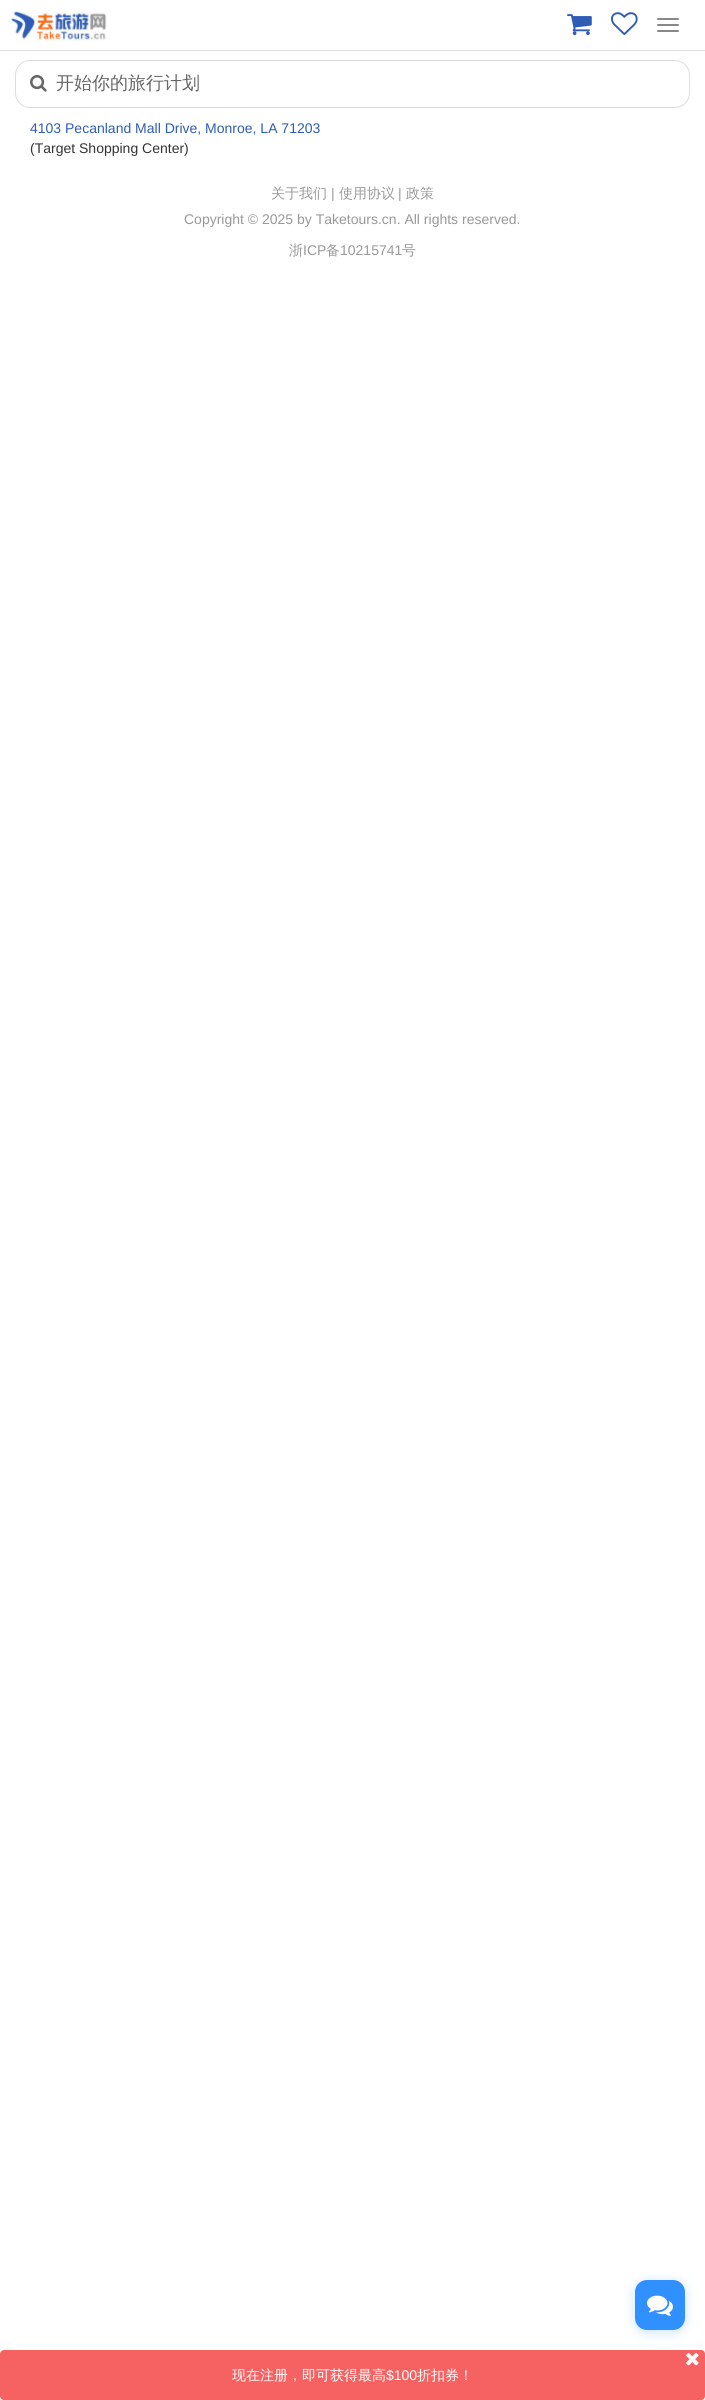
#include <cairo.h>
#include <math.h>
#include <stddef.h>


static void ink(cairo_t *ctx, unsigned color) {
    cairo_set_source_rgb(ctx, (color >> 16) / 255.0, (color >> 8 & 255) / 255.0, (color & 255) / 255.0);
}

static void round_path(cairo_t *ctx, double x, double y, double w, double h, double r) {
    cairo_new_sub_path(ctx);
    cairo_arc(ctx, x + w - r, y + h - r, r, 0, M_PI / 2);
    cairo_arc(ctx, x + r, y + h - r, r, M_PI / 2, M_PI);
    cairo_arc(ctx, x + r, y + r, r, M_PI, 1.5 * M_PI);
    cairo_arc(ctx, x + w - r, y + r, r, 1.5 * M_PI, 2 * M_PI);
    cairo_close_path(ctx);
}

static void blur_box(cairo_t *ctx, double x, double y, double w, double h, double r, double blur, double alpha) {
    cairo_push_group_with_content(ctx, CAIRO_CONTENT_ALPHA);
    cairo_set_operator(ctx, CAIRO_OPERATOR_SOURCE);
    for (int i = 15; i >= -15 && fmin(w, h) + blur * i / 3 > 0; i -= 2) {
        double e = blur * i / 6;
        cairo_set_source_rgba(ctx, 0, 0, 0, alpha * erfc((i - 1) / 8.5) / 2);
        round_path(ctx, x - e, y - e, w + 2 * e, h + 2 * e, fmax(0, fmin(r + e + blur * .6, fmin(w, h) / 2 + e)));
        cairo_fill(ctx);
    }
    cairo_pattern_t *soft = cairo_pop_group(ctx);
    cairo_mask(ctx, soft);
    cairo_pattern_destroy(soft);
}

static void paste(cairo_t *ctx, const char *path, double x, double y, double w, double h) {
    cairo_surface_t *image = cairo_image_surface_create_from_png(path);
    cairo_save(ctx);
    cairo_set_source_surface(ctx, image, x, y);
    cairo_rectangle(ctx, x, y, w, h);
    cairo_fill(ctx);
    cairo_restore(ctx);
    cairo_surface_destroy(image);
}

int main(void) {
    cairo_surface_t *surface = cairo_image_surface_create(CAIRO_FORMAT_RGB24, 705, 2400);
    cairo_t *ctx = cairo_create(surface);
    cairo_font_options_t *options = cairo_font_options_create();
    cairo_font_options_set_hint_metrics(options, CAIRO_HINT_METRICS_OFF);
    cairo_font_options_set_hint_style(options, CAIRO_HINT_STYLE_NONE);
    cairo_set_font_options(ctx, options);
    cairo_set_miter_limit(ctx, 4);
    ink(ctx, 0xFFFFFF);
    cairo_paint(ctx);
    ink(ctx, 0xDDDDDD);
    cairo_rectangle(ctx, 0, 50, 705, 1);
    cairo_fill(ctx);
    paste(ctx, "media/1.png", 10, 11, 97, 31);
    paste(ctx, "media/2.png", 567, 14, 25, 22);
    paste(ctx, "media/3.png", 611, 12, 27, 24);
    ink(ctx, 0x888888);
    round_path(ctx, 657, 18, 22, 2, 1);
    cairo_fill(ctx);
    round_path(ctx, 657, 24, 22, 2, 1);
    cairo_fill(ctx);
    round_path(ctx, 657, 30, 22, 2, 1);
    cairo_fill(ctx);
    round_path(ctx, 15.5, 60.5, 674, 47, 14.5);
    ink(ctx, 0xDDDDDD);
    cairo_set_line_width(ctx, 1);
    cairo_stroke(ctx);
    paste(ctx, "media/4.png", 30, 75, 17, 17);
    cairo_select_font_face(ctx, "WenQuanYi Zen Hei Medium", CAIRO_FONT_SLANT_NORMAL, CAIRO_FONT_WEIGHT_NORMAL);
    cairo_set_font_size(ctx, 18);
    ink(ctx, 0x666666);
    cairo_move_to(ctx, 56, 89);
    cairo_show_text(ctx, "开始你的旅行计划");
    cairo_select_font_face(ctx, "Liberation Sans", CAIRO_FONT_SLANT_NORMAL, CAIRO_FONT_WEIGHT_NORMAL);
    cairo_set_font_size(ctx, 14);
    ink(ctx, 0x2F5DB5);
    cairo_move_to(ctx, 30, 133);
    cairo_show_text(ctx, "4103 Pecanland Mall Drive, Monroe, LA 71203");
    ink(ctx, 0x333333);
    cairo_move_to(ctx, 30, 153);
    cairo_show_text(ctx, "(Target Shopping Center)");
    cairo_select_font_face(ctx, "WenQuanYi Zen Hei Medium", CAIRO_FONT_SLANT_NORMAL, CAIRO_FONT_WEIGHT_NORMAL);
    ink(ctx, 0x999999);
    cairo_move_to(ctx, 271, 198);
    cairo_show_text(ctx, "关于我们");
    cairo_select_font_face(ctx, "Liberation Sans", CAIRO_FONT_SLANT_NORMAL, CAIRO_FONT_WEIGHT_NORMAL);
    cairo_move_to(ctx, 331, 198);
    cairo_show_text(ctx, "|");
    cairo_select_font_face(ctx, "WenQuanYi Zen Hei Medium", CAIRO_FONT_SLANT_NORMAL, CAIRO_FONT_WEIGHT_NORMAL);
    cairo_move_to(ctx, 339, 198);
    cairo_show_text(ctx, "使用协议");
    cairo_select_font_face(ctx, "Liberation Sans", CAIRO_FONT_SLANT_NORMAL, CAIRO_FONT_WEIGHT_NORMAL);
    cairo_move_to(ctx, 398, 198);
    cairo_show_text(ctx, "|");
    cairo_select_font_face(ctx, "WenQuanYi Zen Hei Medium", CAIRO_FONT_SLANT_NORMAL, CAIRO_FONT_WEIGHT_NORMAL);
    cairo_move_to(ctx, 406, 198);
    cairo_show_text(ctx, "政策");
    cairo_select_font_face(ctx, "Liberation Sans", CAIRO_FONT_SLANT_NORMAL, CAIRO_FONT_WEIGHT_NORMAL);
    cairo_move_to(ctx, 184, 224);
    cairo_show_text(ctx, "Copyright © 2025 by Taketours.cn. All rights reserved.");
    cairo_select_font_face(ctx, "WenQuanYi Zen Hei Medium", CAIRO_FONT_SLANT_NORMAL, CAIRO_FONT_WEIGHT_NORMAL);
    cairo_move_to(ctx, 289, 255);
    cairo_show_text(ctx, "浙");
    cairo_select_font_face(ctx, "Liberation Sans", CAIRO_FONT_SLANT_NORMAL, CAIRO_FONT_WEIGHT_NORMAL);
    cairo_move_to(ctx, 303, 255);
    cairo_show_text(ctx, "ICP");
    cairo_select_font_face(ctx, "WenQuanYi Zen Hei Medium", CAIRO_FONT_SLANT_NORMAL, CAIRO_FONT_WEIGHT_NORMAL);
    cairo_move_to(ctx, 326, 255);
    cairo_show_text(ctx, "备");
    cairo_select_font_face(ctx, "Liberation Sans", CAIRO_FONT_SLANT_NORMAL, CAIRO_FONT_WEIGHT_NORMAL);
    cairo_move_to(ctx, 340, 255);
    cairo_show_text(ctx, "10215741");
    cairo_select_font_face(ctx, "WenQuanYi Zen Hei Medium", CAIRO_FONT_SLANT_NORMAL, CAIRO_FONT_WEIGHT_NORMAL);
    cairo_move_to(ctx, 402, 255);
    cairo_show_text(ctx, "号");
    ink(ctx, 0xF66262);
    round_path(ctx, 0, 2350, 705, 50, 4);
    cairo_fill(ctx);
    ink(ctx, 0x3090FF);
    blur_box(ctx, 635, 2282, 50, 50, 12, 6, 0.25);
    ink(ctx, 0x3090FF);
    round_path(ctx, 635, 2280, 50, 50, 12);
    cairo_fill(ctx);
    paste(ctx, "media/5.png", 647, 2295, 26, 21);
    paste(ctx, "media/6.png", 686, 2353, 13, 13);
    ink(ctx, 0xFFFFFF);
    cairo_move_to(ctx, 232, 2380);
    cairo_show_text(ctx, "现在注册，即可获得最高");
    cairo_select_font_face(ctx, "Liberation Sans", CAIRO_FONT_SLANT_NORMAL, CAIRO_FONT_WEIGHT_NORMAL);
    cairo_move_to(ctx, 386, 2380);
    cairo_show_text(ctx, "$100");
    cairo_select_font_face(ctx, "WenQuanYi Zen Hei Medium", CAIRO_FONT_SLANT_NORMAL, CAIRO_FONT_WEIGHT_NORMAL);
    cairo_move_to(ctx, 417, 2380);
    cairo_show_text(ctx, "折扣券！");
    cairo_surface_write_to_png(surface, "image.png");
    cairo_font_options_destroy(options);
    cairo_destroy(ctx);
    cairo_surface_destroy(surface);
    return 0;
}
